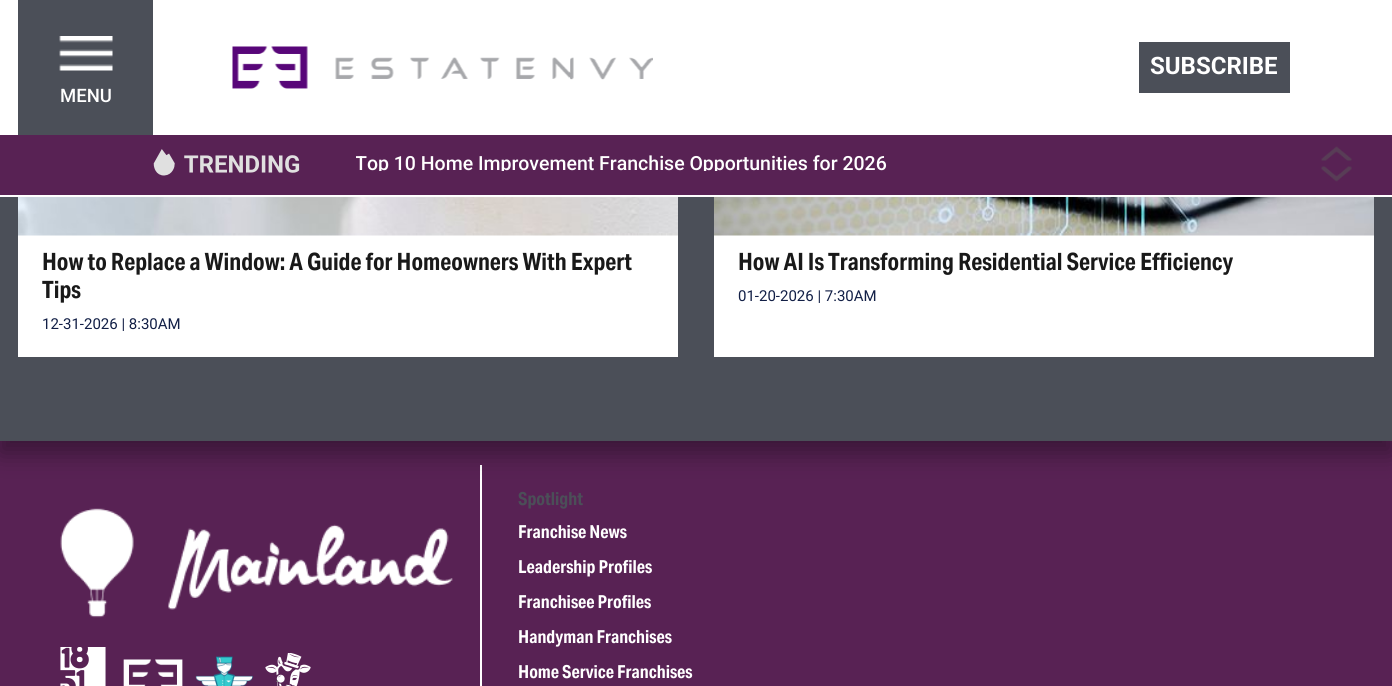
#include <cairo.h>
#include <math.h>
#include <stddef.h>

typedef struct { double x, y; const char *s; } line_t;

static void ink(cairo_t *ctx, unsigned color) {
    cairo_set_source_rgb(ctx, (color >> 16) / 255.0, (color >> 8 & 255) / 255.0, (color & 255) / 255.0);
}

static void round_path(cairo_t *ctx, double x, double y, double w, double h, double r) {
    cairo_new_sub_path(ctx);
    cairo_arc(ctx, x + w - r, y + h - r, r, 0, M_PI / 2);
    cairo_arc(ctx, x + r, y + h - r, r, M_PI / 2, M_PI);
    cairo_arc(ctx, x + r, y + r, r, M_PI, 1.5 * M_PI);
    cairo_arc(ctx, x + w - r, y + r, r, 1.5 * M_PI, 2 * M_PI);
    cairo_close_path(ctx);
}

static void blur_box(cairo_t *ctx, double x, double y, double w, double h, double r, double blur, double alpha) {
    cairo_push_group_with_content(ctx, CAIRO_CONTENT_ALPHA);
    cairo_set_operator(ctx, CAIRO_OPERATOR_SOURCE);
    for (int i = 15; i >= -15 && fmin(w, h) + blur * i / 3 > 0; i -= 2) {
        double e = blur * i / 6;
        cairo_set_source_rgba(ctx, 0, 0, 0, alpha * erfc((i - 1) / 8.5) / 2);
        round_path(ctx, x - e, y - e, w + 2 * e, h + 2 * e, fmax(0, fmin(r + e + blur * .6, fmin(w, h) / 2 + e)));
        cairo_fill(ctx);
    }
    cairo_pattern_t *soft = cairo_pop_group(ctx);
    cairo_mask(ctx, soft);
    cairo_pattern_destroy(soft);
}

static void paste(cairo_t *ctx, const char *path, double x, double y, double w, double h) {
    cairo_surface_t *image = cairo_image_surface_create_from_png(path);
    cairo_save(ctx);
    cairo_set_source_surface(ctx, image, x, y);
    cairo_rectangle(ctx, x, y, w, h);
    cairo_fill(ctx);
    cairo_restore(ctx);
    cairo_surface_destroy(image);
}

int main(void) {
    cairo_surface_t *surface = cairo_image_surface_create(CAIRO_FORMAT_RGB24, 1392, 686);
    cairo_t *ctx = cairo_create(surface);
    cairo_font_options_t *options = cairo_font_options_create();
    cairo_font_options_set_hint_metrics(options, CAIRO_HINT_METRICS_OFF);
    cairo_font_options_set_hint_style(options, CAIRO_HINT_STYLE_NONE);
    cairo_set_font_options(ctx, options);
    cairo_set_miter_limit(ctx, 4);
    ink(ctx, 0x582254);
    cairo_paint(ctx);
    ink(ctx, 0xFFFFFF);
    cairo_rectangle(ctx, 480, 465, 2, 221);
    cairo_fill(ctx);
    ink(ctx, 0x000000);
    blur_box(ctx, 0, -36, 1392, 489, 0, 12, 0.36);
    ink(ctx, 0xFFFFFF);
    cairo_rectangle(ctx, 0, 0, 1392, 135);
    cairo_fill(ctx);
    paste(ctx, "media/1.png", 232, 46, 421, 43);
    ink(ctx, 0x4B4F58);
    cairo_rectangle(ctx, 1139, 42, 151, 51);
    cairo_fill(ctx);
    cairo_select_font_face(ctx, "Roboto", CAIRO_FONT_SLANT_NORMAL, CAIRO_FONT_WEIGHT_BOLD);
    cairo_set_font_size(ctx, 24);
    ink(ctx, 0xFFFFFF);
    cairo_move_to(ctx, 1150, 74);
    cairo_show_text(ctx, "SUBSCRIBE");
    ink(ctx, 0x4B4F58);
    cairo_rectangle(ctx, 18, 0, 135, 135);
    cairo_fill(ctx);
    paste(ctx, "media/2.png", 59, 36, 54, 35);
    cairo_select_font_face(ctx, "Roboto Medium", CAIRO_FONT_SLANT_NORMAL, CAIRO_FONT_WEIGHT_NORMAL);
    cairo_set_font_size(ctx, 18.5);
    ink(ctx, 0xFFFFFF);
    cairo_move_to(ctx, 60, 102);
    cairo_show_text(ctx, "MENU");
    ink(ctx, 0x582254);
    cairo_rectangle(ctx, 0, 135, 1392, 60);
    cairo_fill(ctx);
    ink(ctx, 0xFFFFFF);
    cairo_rectangle(ctx, 0, 195, 1392, 2);
    cairo_fill(ctx);
    paste(ctx, "media/3.png", 153, 149, 147, 27);
    paste(ctx, "media/4.png", 1321, 146, 31, 15);
    cairo_save(ctx);
    cairo_rectangle(ctx, 356, 155, 531, 16);
    cairo_clip(ctx);
    cairo_set_font_size(ctx, 19.5);
    cairo_move_to(ctx, 355, 170);
    cairo_show_text(ctx, "Top 10 Home Improvement Franchise Opportunities for 2026");
    cairo_restore(ctx);
    paste(ctx, "media/5.png", 1321, 166, 31, 16);
    ink(ctx, 0x4B4F58);
    cairo_rectangle(ctx, 0, 197, 1392, 244);
    cairo_fill(ctx);
    ink(ctx, 0xFFFFFF);
    cairo_rectangle(ctx, 18, 235, 660, 122);
    cairo_fill(ctx);
    paste(ctx, "media/6.png", 18, 197, 660, 39);
    cairo_select_font_face(ctx, "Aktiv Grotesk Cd", CAIRO_FONT_SLANT_NORMAL, CAIRO_FONT_WEIGHT_BOLD);
    cairo_set_font_size(ctx, 24);
    ink(ctx, 0x191919);
    cairo_move_to(ctx, 42, 270);
    cairo_show_text(ctx, "How to Replace a Window: A Guide for Homeowners With Expert");
    cairo_move_to(ctx, 42, 298);
    cairo_show_text(ctx, "Tips");
    cairo_select_font_face(ctx, "Roboto", CAIRO_FONT_SLANT_NORMAL, CAIRO_FONT_WEIGHT_NORMAL);
    cairo_set_font_size(ctx, 15);
    ink(ctx, 0x121F46);
    cairo_move_to(ctx, 42, 329);
    cairo_show_text(ctx, "12-31-2026 | 8:30AM");
    ink(ctx, 0xFFFFFF);
    cairo_rectangle(ctx, 714, 235, 660, 122);
    cairo_fill(ctx);
    paste(ctx, "media/7.png", 714, 197, 660, 39);
    cairo_select_font_face(ctx, "Aktiv Grotesk Cd", CAIRO_FONT_SLANT_NORMAL, CAIRO_FONT_WEIGHT_BOLD);
    cairo_set_font_size(ctx, 24);
    ink(ctx, 0x191919);
    cairo_move_to(ctx, 738, 270);
    cairo_show_text(ctx, "How AI Is Transforming Residential Service Efficiency");
    cairo_select_font_face(ctx, "Roboto", CAIRO_FONT_SLANT_NORMAL, CAIRO_FONT_WEIGHT_NORMAL);
    cairo_set_font_size(ctx, 15);
    ink(ctx, 0x121F46);
    cairo_move_to(ctx, 738, 301);
    cairo_show_text(ctx, "01-20-2026 | 7:30AM");
    paste(ctx, "media/8.png", 60, 508, 393, 110);
    paste(ctx, "media/9.png", 60, 647, 46, 39);
    paste(ctx, "media/10.png", 123, 659, 60, 27);
    paste(ctx, "media/11.png", 195, 656, 58, 30);
    paste(ctx, "media/12.png", 265, 653, 46, 33);
    cairo_select_font_face(ctx, "Aktiv Grotesk Cd", CAIRO_FONT_SLANT_NORMAL, CAIRO_FONT_WEIGHT_BOLD);
    cairo_set_font_size(ctx, 18);
    ink(ctx, 0x4B4F58);
    cairo_move_to(ctx, 518, 505);
    cairo_show_text(ctx, "Spotlight");
    ink(ctx, 0xFFFFFF);
    {
        static const line_t items[] = {
            {518, 538, "Franchise News"},
            {518, 573, "Leadership Profiles"},
            {518, 608, "Franchisee Profiles"},
            {518, 643, "Handyman Franchises"},
            {518, 678, "Home Service Franchises"},
        };
        for (size_t i = 0; i < sizeof items / sizeof *items; i++) {
            cairo_move_to(ctx, items[i].x, items[i].y);
            cairo_show_text(ctx, items[i].s);
        }
    }
    cairo_surface_write_to_png(surface, "image.png");
    cairo_font_options_destroy(options);
    cairo_destroy(ctx);
    cairo_surface_destroy(surface);
    return 0;
}
